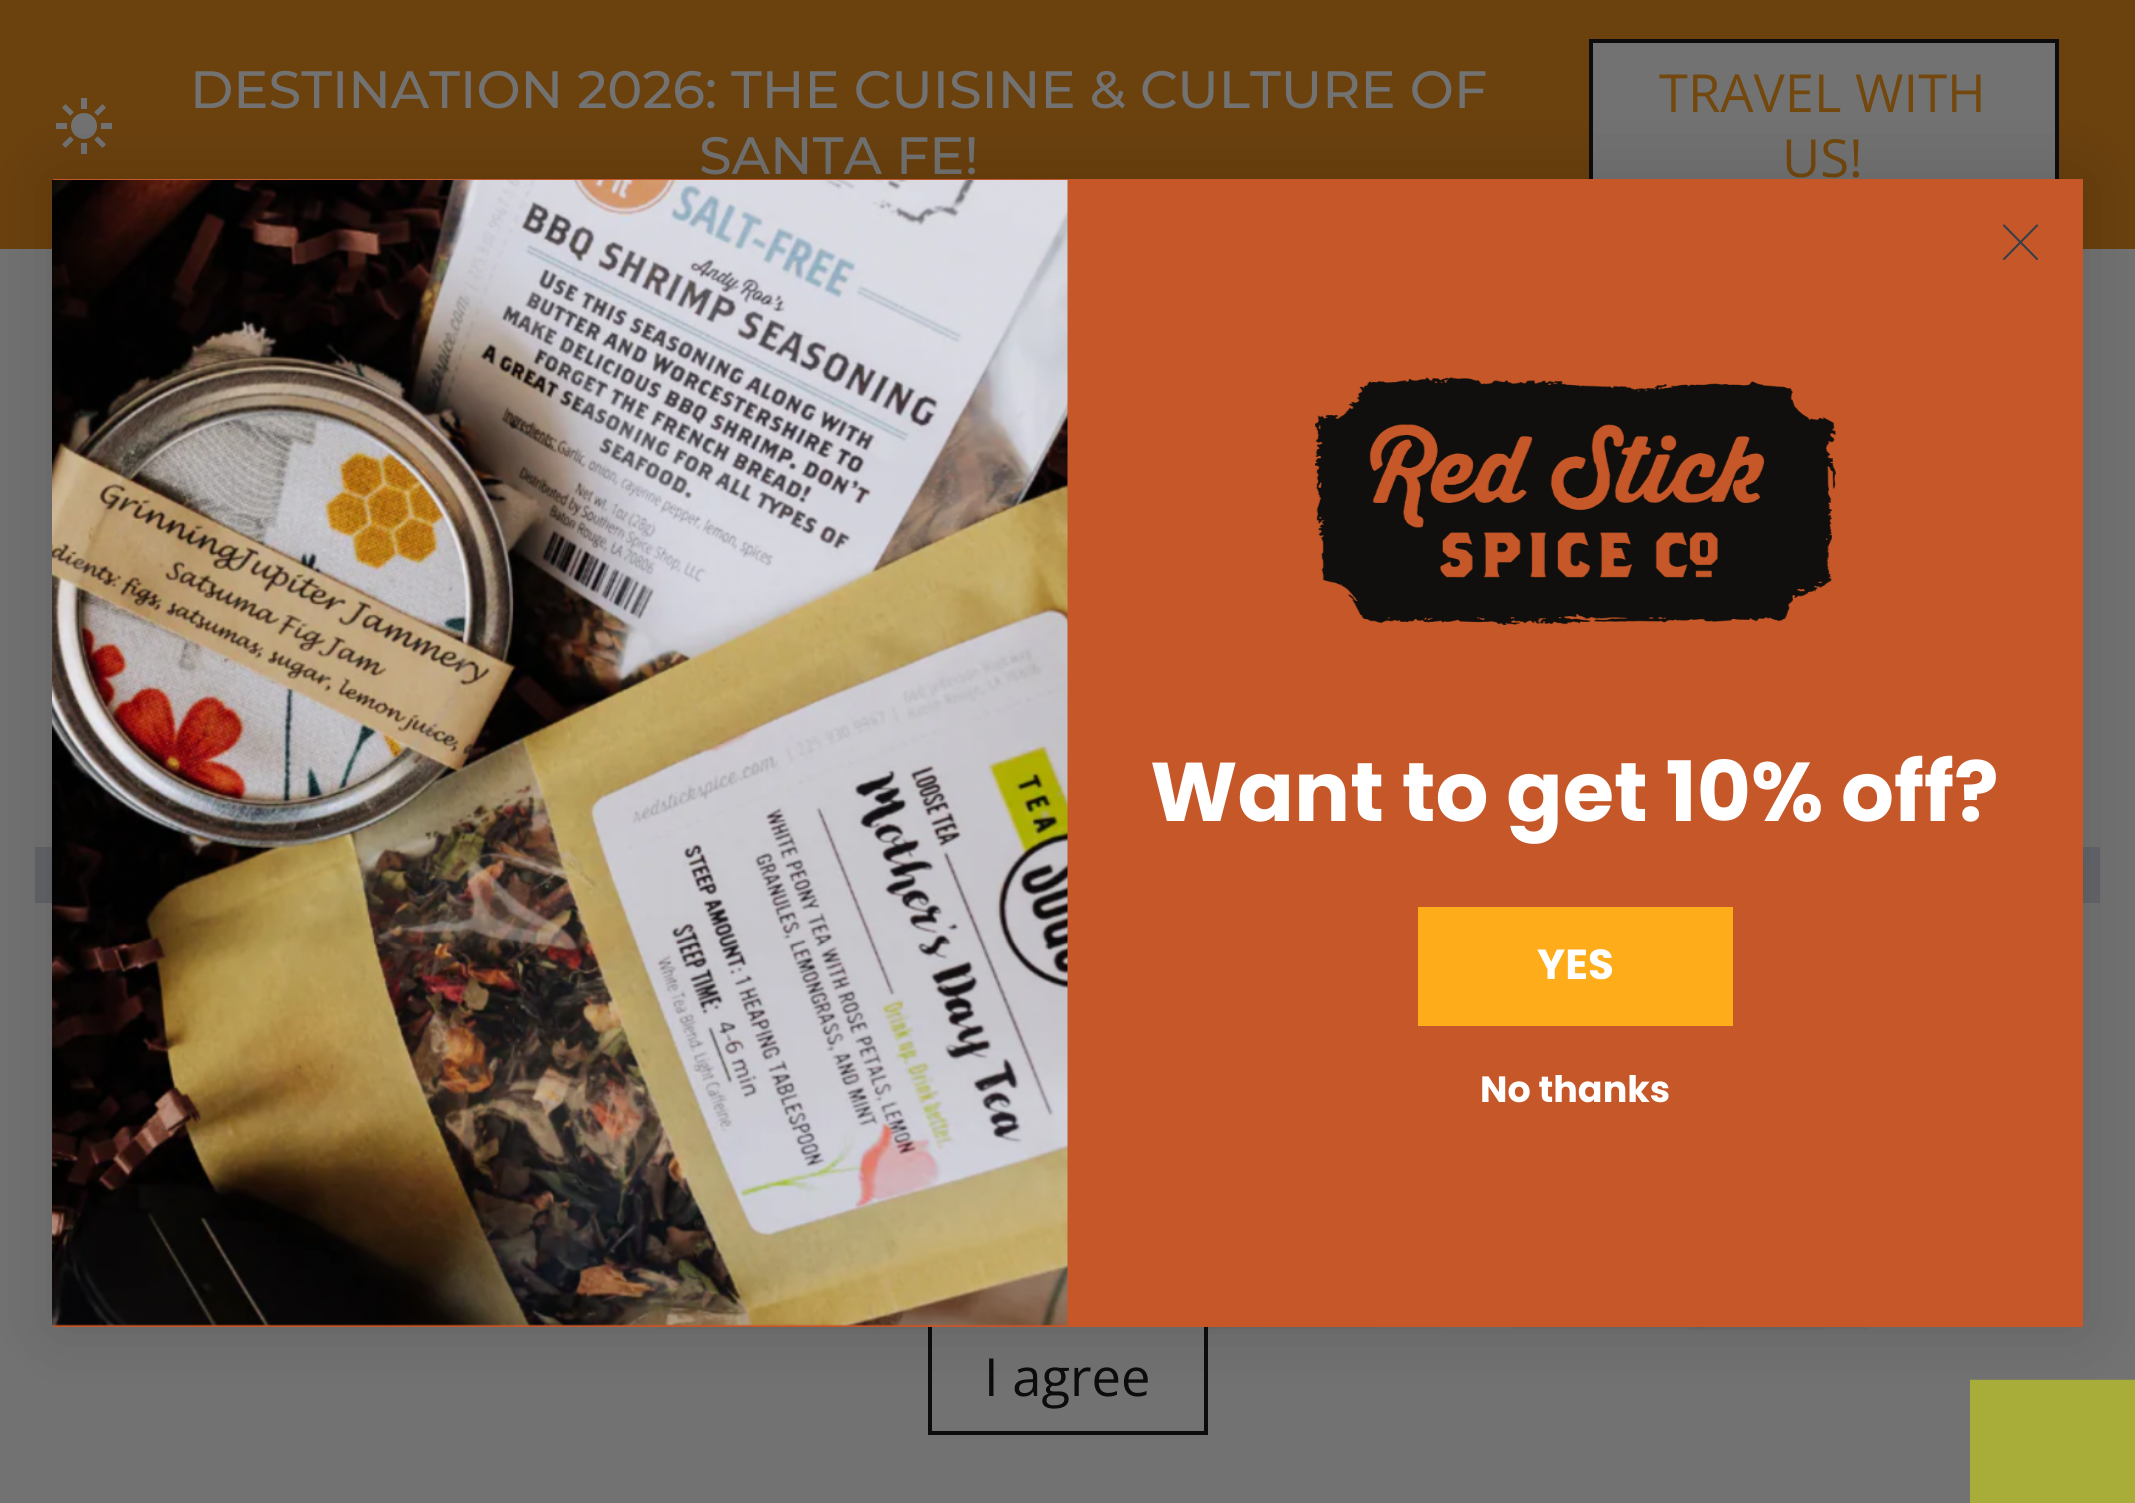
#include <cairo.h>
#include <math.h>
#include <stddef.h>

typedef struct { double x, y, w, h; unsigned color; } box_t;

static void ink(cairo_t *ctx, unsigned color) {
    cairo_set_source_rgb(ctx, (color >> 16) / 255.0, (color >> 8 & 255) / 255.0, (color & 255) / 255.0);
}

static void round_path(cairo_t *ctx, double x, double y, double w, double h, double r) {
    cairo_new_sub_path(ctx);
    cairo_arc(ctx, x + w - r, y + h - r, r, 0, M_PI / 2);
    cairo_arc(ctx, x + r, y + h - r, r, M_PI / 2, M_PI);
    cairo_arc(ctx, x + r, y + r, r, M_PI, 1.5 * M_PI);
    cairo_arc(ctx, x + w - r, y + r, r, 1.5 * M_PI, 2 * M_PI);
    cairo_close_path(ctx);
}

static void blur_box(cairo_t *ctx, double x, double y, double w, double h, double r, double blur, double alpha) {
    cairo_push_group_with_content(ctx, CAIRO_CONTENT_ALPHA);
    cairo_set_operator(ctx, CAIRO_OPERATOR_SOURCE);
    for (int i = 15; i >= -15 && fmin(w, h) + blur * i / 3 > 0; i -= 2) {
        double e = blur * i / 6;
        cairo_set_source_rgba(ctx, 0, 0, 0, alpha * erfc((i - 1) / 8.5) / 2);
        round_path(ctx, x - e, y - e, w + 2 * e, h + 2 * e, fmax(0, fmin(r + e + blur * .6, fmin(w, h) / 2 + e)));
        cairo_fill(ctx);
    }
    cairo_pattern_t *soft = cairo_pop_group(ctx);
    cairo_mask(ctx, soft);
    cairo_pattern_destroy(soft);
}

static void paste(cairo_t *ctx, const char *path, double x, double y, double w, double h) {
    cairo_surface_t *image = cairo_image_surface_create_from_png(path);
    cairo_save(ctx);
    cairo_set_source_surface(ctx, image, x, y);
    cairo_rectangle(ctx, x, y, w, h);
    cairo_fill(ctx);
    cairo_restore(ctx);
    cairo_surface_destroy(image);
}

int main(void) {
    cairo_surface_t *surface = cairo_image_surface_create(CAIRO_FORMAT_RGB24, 2135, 1503);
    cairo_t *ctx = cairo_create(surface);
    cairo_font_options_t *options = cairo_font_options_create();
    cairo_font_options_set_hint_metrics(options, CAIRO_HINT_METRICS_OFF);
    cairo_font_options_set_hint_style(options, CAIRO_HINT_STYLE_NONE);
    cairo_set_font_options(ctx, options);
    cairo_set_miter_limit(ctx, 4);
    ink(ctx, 0x727272);
    cairo_paint(ctx);
    ink(ctx, 0x6B410E);
    cairo_rectangle(ctx, 0, 0, 2135, 249);
    cairo_fill(ctx);
    paste(ctx, "media/1.png", 56, 98, 56, 56);
    cairo_select_font_face(ctx, "Montserrat Medium", CAIRO_FONT_SLANT_NORMAL, CAIRO_FONT_WEIGHT_NORMAL);
    cairo_set_font_size(ctx, 52.5);
    ink(ctx, 0x727272);
    cairo_move_to(ctx, 190, 108);
    cairo_show_text(ctx, "DESTINATION 2026: THE CUISINE & CULTURE OF");
    cairo_move_to(ctx, 699, 174);
    cairo_show_text(ctx, "SANTA FE!");
    {
        static const box_t items[] = {
            {1593, 43, 462, 136, 0x727272},
            {1589, 39, 469, 4, 0x0C0C0C},
            {2055, 39, 4, 140, 0x0C0C0C},
            {1589, 39, 4, 140, 0x0C0C0C},
        };
        for (size_t i = 0; i < sizeof items / sizeof *items; i++) {
            ink(ctx, items[i].color);
            cairo_rectangle(ctx, items[i].x, items[i].y, items[i].w, items[i].h);
            cairo_fill(ctx);
        }
    }
    cairo_select_font_face(ctx, "Open Sans", CAIRO_FONT_SLANT_NORMAL, CAIRO_FONT_WEIGHT_NORMAL);
    ink(ctx, 0x72480E);
    cairo_move_to(ctx, 1659, 112);
    cairo_show_text(ctx, "TRAVEL WITH");
    cairo_move_to(ctx, 1782, 177);
    cairo_show_text(ctx, "US!");
    paste(ctx, "media/4.png", 35, 847, 2065, 56);
    paste(ctx, "media/5.png", 658, 1327, 270, 3);
    paste(ctx, "media/6.png", 1208, 1327, 234, 3);
    paste(ctx, "media/7.png", 1512, 1327, 357, 3);
    cairo_set_source_rgba(ctx, 0.447, 0.447, 0.447, 0.8);
    cairo_rectangle(ctx, 658, 1327, 1211, 3);
    cairo_fill(ctx);
    cairo_rectangle(ctx, 930, 1318, 276, 115);
    ink(ctx, 0x0C0C0C);
    cairo_set_line_width(ctx, 4);
    cairo_stroke(ctx);
    ink(ctx, 0x000000);
    blur_box(ctx, 53, 179, 2030, 1148, 0, 39, 0.15);
    ink(ctx, 0xC65728);
    cairo_rectangle(ctx, 53, 179, 2030, 1148);
    cairo_fill(ctx);
    cairo_new_path(ctx);
    cairo_move_to(ctx, 2004, 225.5);
    cairo_line_to(ctx, 2037, 259);
    cairo_move_to(ctx, 2004, 259);
    cairo_line_to(ctx, 2037, 225.5);
    cairo_close_path(ctx);
    ink(ctx, 0x373F47);
    cairo_set_line_width(ctx, 2.1);
    cairo_set_line_cap(ctx, CAIRO_LINE_CAP_ROUND);
    cairo_set_line_join(ctx, CAIRO_LINE_JOIN_ROUND);
    cairo_stroke(ctx);
    paste(ctx, "media/2.png", 52, 180, 1016, 1146);
    paste(ctx, "media/3.png", 1315, 377, 521, 248);
    cairo_select_font_face(ctx, "Poppins", CAIRO_FONT_SLANT_NORMAL, CAIRO_FONT_WEIGHT_BOLD);
    cairo_set_font_size(ctx, 83.25);
    ink(ctx, 0xFFFFFF);
    cairo_move_to(ctx, 1150, 821);
    cairo_show_text(ctx, "Want to get 10% off?");
    ink(ctx, 0xFFAC1B);
    cairo_rectangle(ctx, 1418, 907, 315, 119);
    cairo_fill(ctx);
    cairo_set_font_size(ctx, 42);
    ink(ctx, 0xFFFFFF);
    cairo_move_to(ctx, 1537, 979);
    cairo_show_text(ctx, "YES");
    cairo_set_font_size(ctx, 36.5);
    cairo_move_to(ctx, 1480, 1102);
    cairo_show_text(ctx, "No thanks");
    cairo_select_font_face(ctx, "Open Sans", CAIRO_FONT_SLANT_NORMAL, CAIRO_FONT_WEIGHT_NORMAL);
    cairo_set_font_size(ctx, 52.5);
    ink(ctx, 0x0C0C0C);
    cairo_move_to(ctx, 984, 1396);
    cairo_show_text(ctx, "I agree");
    ink(ctx, 0xA8AD39);
    cairo_rectangle(ctx, 1970, 1380, 165, 123);
    cairo_fill(ctx);
    cairo_new_path(ctx);
    cairo_move_to(ctx, 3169, 1381.5);
    cairo_line_to(ctx, 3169, 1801);
    cairo_line_to(ctx, 1972, 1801);
    cairo_line_to(ctx, 1972, 1381.5);
    cairo_close_path(ctx);
    cairo_set_line_width(ctx, 3.5);
    cairo_set_line_cap(ctx, CAIRO_LINE_CAP_BUTT);
    cairo_set_line_join(ctx, CAIRO_LINE_JOIN_MITER);
    cairo_stroke(ctx);
    cairo_surface_write_to_png(surface, "image.png");
    cairo_font_options_destroy(options);
    cairo_destroy(ctx);
    cairo_surface_destroy(surface);
    return 0;
}
